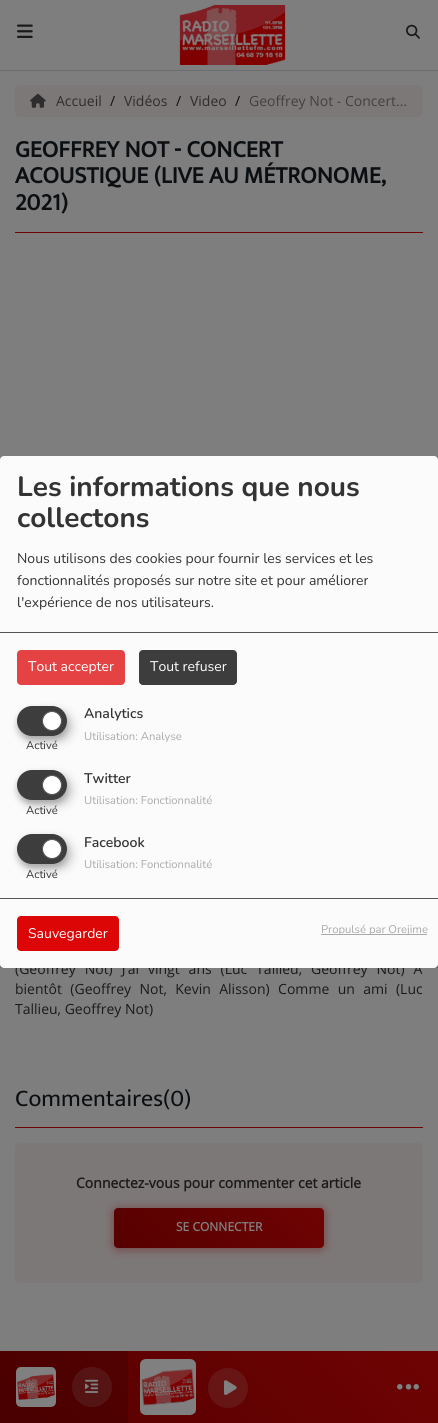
#include <cairo.h>
#include <math.h>
#include <stddef.h>

typedef struct { double x, y; const char *s; } line_t;

static void ink(cairo_t *ctx, unsigned color) {
    cairo_set_source_rgb(ctx, (color >> 16) / 255.0, (color >> 8 & 255) / 255.0, (color & 255) / 255.0);
}

static void write_spaced(cairo_t *ctx, double x, double y, const char *s, double letter, double word) {
    cairo_move_to(ctx, x, y);
    while (*s) {
        char ch[5] = {0};
        int n = 0;
        do ch[n++] = *s++; while ((*s & 0xC0) == 0x80);
        cairo_show_text(ctx, ch);
        cairo_rel_move_to(ctx, letter + word * (*ch == ' '), 0);
    }
}

static void round_path(cairo_t *ctx, double x, double y, double w, double h, double r) {
    cairo_new_sub_path(ctx);
    cairo_arc(ctx, x + w - r, y + h - r, r, 0, M_PI / 2);
    cairo_arc(ctx, x + r, y + h - r, r, M_PI / 2, M_PI);
    cairo_arc(ctx, x + r, y + r, r, M_PI, 1.5 * M_PI);
    cairo_arc(ctx, x + w - r, y + r, r, 1.5 * M_PI, 2 * M_PI);
    cairo_close_path(ctx);
}

static void blur_box(cairo_t *ctx, double x, double y, double w, double h, double r, double blur, double alpha) {
    cairo_push_group_with_content(ctx, CAIRO_CONTENT_ALPHA);
    cairo_set_operator(ctx, CAIRO_OPERATOR_SOURCE);
    for (int i = 15; i >= -15 && fmin(w, h) + blur * i / 3 > 0; i -= 2) {
        double e = blur * i / 6;
        cairo_set_source_rgba(ctx, 0, 0, 0, alpha * erfc((i - 1) / 8.5) / 2);
        round_path(ctx, x - e, y - e, w + 2 * e, h + 2 * e, fmax(0, fmin(r + e + blur * .6, fmin(w, h) / 2 + e)));
        cairo_fill(ctx);
    }
    cairo_pattern_t *soft = cairo_pop_group(ctx);
    cairo_mask(ctx, soft);
    cairo_pattern_destroy(soft);
}

static void paste(cairo_t *ctx, const char *path, double x, double y, double w, double h) {
    cairo_surface_t *image = cairo_image_surface_create_from_png(path);
    cairo_save(ctx);
    cairo_set_source_surface(ctx, image, x, y);
    cairo_rectangle(ctx, x, y, w, h);
    cairo_fill(ctx);
    cairo_restore(ctx);
    cairo_surface_destroy(image);
}

int main(void) {
    cairo_surface_t *surface = cairo_image_surface_create(CAIRO_FORMAT_RGB24, 438, 1423);
    cairo_t *ctx = cairo_create(surface);
    cairo_font_options_t *options = cairo_font_options_create();
    cairo_font_options_set_hint_metrics(options, CAIRO_HINT_METRICS_OFF);
    cairo_font_options_set_hint_style(options, CAIRO_HINT_STYLE_NONE);
    cairo_set_font_options(ctx, options);
    cairo_set_miter_limit(ctx, 4);
    cairo_pattern_t *gradient;
    ink(ctx, 0x7E7E7E);
    cairo_paint(ctx);
    ink(ctx, 0x696C70);
    cairo_rectangle(ctx, 0, 70, 438, 1);
    cairo_fill(ctx);
    paste(ctx, "media/1.png", 17, 24, 16, 14);
    paste(ctx, "media/2.png", 179, 5, 107, 60);
    paste(ctx, "media/3.png", 406, 24, 14, 15);
    gradient = cairo_pattern_create_linear(347, 1260, 92, 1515);
    cairo_pattern_add_color_stop_rgba(gradient, 0, 0.435, 0.012, 0.012, 1);
    cairo_pattern_add_color_stop_rgba(gradient, 1, 0.337, 0, 0, 1);
    cairo_set_source(ctx, gradient);
    cairo_pattern_destroy(gradient);
    cairo_rectangle(ctx, 0, 1351, 438, 72);
    cairo_fill(ctx);
    cairo_set_source_rgba(ctx, 0, 0, 0, 0.15);
    cairo_rectangle(ctx, 0, 1351, 128, 72);
    cairo_fill(ctx);
    paste(ctx, "media/4.png", 16, 1367, 40, 40);
    cairo_set_source_rgba(ctx, 0.502, 0.502, 0.502, 0.15);
    cairo_arc(ctx, 92, 1387, 20, 0, 2 * M_PI);
    cairo_fill(ctx);
    paste(ctx, "media/5.png", 85, 1379, 14, 14);
    paste(ctx, "media/6.png", 140, 1359, 56, 56);
    cairo_arc(ctx, 228, 1388, 20, 0, 2 * M_PI);
    cairo_fill(ctx);
    paste(ctx, "media/7.png", 224, 1380, 13, 15);
    paste(ctx, "media/8.png", 396, 1383, 24, 7);
    ink(ctx, 0x7D7878);
    round_path(ctx, 15, 85, 408, 32, 5);
    cairo_fill(ctx);
    paste(ctx, "media/9.png", 30, 93, 16, 15);
    cairo_select_font_face(ctx, "Open Sans", CAIRO_FONT_SLANT_NORMAL, CAIRO_FONT_WEIGHT_NORMAL);
    cairo_set_font_size(ctx, 14);
    ink(ctx, 0x2D2D2D);
    cairo_move_to(ctx, 56, 106);
    cairo_show_text(ctx, "Accueil");
    ink(ctx, 0x0C0F12);
    cairo_move_to(ctx, 110, 106);
    cairo_show_text(ctx, "/");
    ink(ctx, 0x2D2D2D);
    cairo_move_to(ctx, 124, 106);
    cairo_show_text(ctx, "Vidéos");
    ink(ctx, 0x0C0F12);
    cairo_move_to(ctx, 176, 106);
    cairo_show_text(ctx, "/");
    ink(ctx, 0x2D2D2D);
    cairo_move_to(ctx, 190, 106);
    cairo_show_text(ctx, "Video");
    ink(ctx, 0x0C0F12);
    cairo_move_to(ctx, 235, 106);
    cairo_show_text(ctx, "/");
    ink(ctx, 0x414141);
    cairo_move_to(ctx, 249, 106);
    cairo_show_text(ctx, "Geoffrey Not - Concert…");
    cairo_select_font_face(ctx, "Mukta", CAIRO_FONT_SLANT_NORMAL, CAIRO_FONT_WEIGHT_BOLD);
    cairo_set_font_size(ctx, 24);
    ink(ctx, 0x0C0F12);
    {
        static const line_t items[] = {
            {15, 157, "GEOFFREY NOT - CONCERT"},
            {15, 183, "ACOUSTIQUE (LIVE AU MÉTRONOME,"},
            {15, 210, "2021)"},
        };
        for (size_t i = 0; i < sizeof items / sizeof *items; i++) {
            cairo_move_to(ctx, items[i].x, items[i].y);
            cairo_show_text(ctx, items[i].s);
        }
    }
    ink(ctx, 0x6F0303);
    cairo_rectangle(ctx, 15, 232, 408, 1);
    cairo_fill(ctx);
    cairo_select_font_face(ctx, "Open Sans", CAIRO_FONT_SLANT_NORMAL, CAIRO_FONT_WEIGHT_NORMAL);
    cairo_set_font_size(ctx, 14);
    ink(ctx, 0x1A1A1A);
    write_spaced(ctx, 15, 974, "(Geoffrey Not) J’ai vingt ans (Luc Tallieu, Geoffrey Not) A", 0, 5.25);
    write_spaced(ctx, 15, 994, "bientôt (Geoffrey Not, Kevin Alisson) Comme un ami (Luc", 0, 4.75);
    cairo_move_to(ctx, 15, 1014);
    cairo_show_text(ctx, "Tallieu, Geoffrey Not)");
    ink(ctx, 0x6F0303);
    cairo_rectangle(ctx, 15, 1127, 408, 1);
    cairo_fill(ctx);
    cairo_select_font_face(ctx, "Mukta", CAIRO_FONT_SLANT_NORMAL, CAIRO_FONT_WEIGHT_NORMAL);
    cairo_set_font_size(ctx, 24);
    ink(ctx, 0x0C0F12);
    cairo_move_to(ctx, 15, 1106);
    cairo_show_text(ctx, "Commentaires(0)");
    ink(ctx, 0x7D7878);
    round_path(ctx, 15, 1143, 408, 140, 5);
    cairo_fill(ctx);
    cairo_select_font_face(ctx, "Open Sans", CAIRO_FONT_SLANT_NORMAL, CAIRO_FONT_WEIGHT_BOLD);
    cairo_set_font_size(ctx, 14);
    ink(ctx, 0x1A1A1A);
    cairo_move_to(ctx, 76, 1188);
    cairo_show_text(ctx, "Connectez-vous pour commenter cet article");
    ink(ctx, 0x6F0303);
    blur_box(ctx, 114, 1209, 210, 40, 4, 5, 0.5);
    gradient = cairo_pattern_create_linear(282, 1166, 157, 1291);
    cairo_pattern_add_color_stop_rgba(gradient, 0, 0.435, 0.012, 0.012, 1);
    cairo_pattern_add_color_stop_rgba(gradient, 1, 0.337, 0, 0, 1);
    cairo_set_source(ctx, gradient);
    cairo_pattern_destroy(gradient);
    round_path(ctx, 114, 1208, 210, 40, 4);
    cairo_fill(ctx);
    cairo_set_font_size(ctx, 12);
    ink(ctx, 0x808080);
    cairo_move_to(ctx, 176, 1231);
    cairo_show_text(ctx, "SE CONNECTER");
    cairo_save(ctx);
    cairo_rectangle(ctx, 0, 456, 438, 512);
    cairo_clip(ctx);
    ink(ctx, 0x000000);
    blur_box(ctx, 5, 461, 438, 512, 4, 5, 0.19);
    blur_box(ctx, 0, 460, 438, 512, 4, 3, 0.2);
    cairo_restore(ctx);
    ink(ctx, 0xFBFBFB);
    round_path(ctx, 0, 456, 438, 512, 4);
    cairo_fill(ctx);
    ink(ctx, 0x555555);
    cairo_rectangle(ctx, 0, 632, 438, 1);
    cairo_fill(ctx);
    cairo_select_font_face(ctx, "Nunito", CAIRO_FONT_SLANT_NORMAL, CAIRO_FONT_WEIGHT_BOLD);
    cairo_set_font_size(ctx, 28);
    ink(ctx, 0x333333);
    cairo_move_to(ctx, 17, 496);
    cairo_show_text(ctx, "Les informations que nous");
    cairo_move_to(ctx, 17, 527);
    cairo_show_text(ctx, "collectons");
    cairo_select_font_face(ctx, "Nunito", CAIRO_FONT_SLANT_NORMAL, CAIRO_FONT_WEIGHT_NORMAL);
    cairo_set_font_size(ctx, 14);
    {
        static const line_t items[] = {
            {17, 563, "Nous utilisons des cookies pour fournir les services et les"},
            {17, 585, "fonctionnalités proposés sur notre site et pour améliorer"},
            {17, 607, "l'expérience de nos utilisateurs."},
        };
        for (size_t i = 0; i < sizeof items / sizeof *items; i++) {
            cairo_move_to(ctx, items[i].x, items[i].y);
            cairo_show_text(ctx, items[i].s);
        }
    }
    ink(ctx, 0xE54343);
    round_path(ctx, 17, 650, 108, 35, 4);
    cairo_fill(ctx);
    ink(ctx, 0xFFFFFF);
    cairo_move_to(ctx, 28, 671);
    cairo_show_text(ctx, "Tout accepter");
    ink(ctx, 0x3E3D3D);
    round_path(ctx, 139, 650, 98, 35, 4);
    cairo_fill(ctx);
    ink(ctx, 0xFFFFFF);
    cairo_move_to(ctx, 150, 671);
    cairo_show_text(ctx, "Tout refuser");
    cairo_select_font_face(ctx, "Nunito SemiBold", CAIRO_FONT_SLANT_NORMAL, CAIRO_FONT_WEIGHT_NORMAL);
    ink(ctx, 0x333333);
    cairo_move_to(ctx, 84, 718);
    cairo_show_text(ctx, "Analytics");
    ink(ctx, 0x000000);
    blur_box(ctx, 22, 711, 50, 30, 15, 5, 0.19);
    blur_box(ctx, 17, 710, 50, 30, 15, 3, 0.2);
    ink(ctx, 0x3E3D3D);
    round_path(ctx, 17, 706, 50, 30, 15);
    cairo_fill(ctx);
    ink(ctx, 0xFFFFFF);
    cairo_arc(ctx, 52, 721, 9.5, 0, 2 * M_PI);
    cairo_fill_preserve(ctx);
    ink(ctx, 0x555555);
    cairo_set_line_width(ctx, 1);
    cairo_stroke(ctx);
    cairo_select_font_face(ctx, "Nunito", CAIRO_FONT_SLANT_NORMAL, CAIRO_FONT_WEIGHT_NORMAL);
    cairo_set_font_size(ctx, 11.25);
    ink(ctx, 0x333333);
    cairo_move_to(ctx, 26, 749);
    cairo_show_text(ctx, "Activé");
    ink(ctx, 0xAAAAAA);
    cairo_move_to(ctx, 84, 740);
    cairo_show_text(ctx, "Utilisation: Analyse");
    cairo_select_font_face(ctx, "Nunito SemiBold", CAIRO_FONT_SLANT_NORMAL, CAIRO_FONT_WEIGHT_NORMAL);
    cairo_set_font_size(ctx, 14);
    ink(ctx, 0x333333);
    cairo_move_to(ctx, 84, 783);
    cairo_show_text(ctx, "Twitter");
    ink(ctx, 0x000000);
    blur_box(ctx, 22, 775, 50, 30, 15, 5, 0.19);
    blur_box(ctx, 17, 774, 50, 30, 15, 3, 0.2);
    ink(ctx, 0x3E3D3D);
    round_path(ctx, 17, 770, 50, 30, 15);
    cairo_fill(ctx);
    ink(ctx, 0xFFFFFF);
    cairo_arc(ctx, 52, 785, 9.5, 0, 2 * M_PI);
    cairo_fill_preserve(ctx);
    ink(ctx, 0x555555);
    cairo_stroke(ctx);
    cairo_select_font_face(ctx, "Nunito", CAIRO_FONT_SLANT_NORMAL, CAIRO_FONT_WEIGHT_NORMAL);
    cairo_set_font_size(ctx, 11.25);
    ink(ctx, 0x333333);
    cairo_move_to(ctx, 26, 814);
    cairo_show_text(ctx, "Activé");
    ink(ctx, 0xAAAAAA);
    cairo_move_to(ctx, 84, 804);
    cairo_show_text(ctx, "Utilisation: Fonctionnalité");
    cairo_select_font_face(ctx, "Nunito SemiBold", CAIRO_FONT_SLANT_NORMAL, CAIRO_FONT_WEIGHT_NORMAL);
    cairo_set_font_size(ctx, 14);
    ink(ctx, 0x333333);
    cairo_move_to(ctx, 84, 847);
    cairo_show_text(ctx, "Facebook");
    ink(ctx, 0x000000);
    blur_box(ctx, 22, 839, 50, 30, 15, 5, 0.19);
    blur_box(ctx, 17, 838, 50, 30, 15, 3, 0.2);
    ink(ctx, 0x3E3D3D);
    round_path(ctx, 17, 834, 50, 30, 15);
    cairo_fill(ctx);
    ink(ctx, 0xFFFFFF);
    cairo_arc(ctx, 52, 849, 9.5, 0, 2 * M_PI);
    cairo_fill_preserve(ctx);
    ink(ctx, 0x555555);
    cairo_stroke(ctx);
    cairo_select_font_face(ctx, "Nunito", CAIRO_FONT_SLANT_NORMAL, CAIRO_FONT_WEIGHT_NORMAL);
    cairo_set_font_size(ctx, 11.25);
    ink(ctx, 0x333333);
    cairo_move_to(ctx, 26, 878);
    cairo_show_text(ctx, "Activé");
    ink(ctx, 0xAAAAAA);
    cairo_move_to(ctx, 84, 868);
    cairo_show_text(ctx, "Utilisation: Fonctionnalité");
    ink(ctx, 0x555555);
    cairo_rectangle(ctx, 0, 898, 438, 1);
    cairo_fill(ctx);
    ink(ctx, 0xDD0606);
    round_path(ctx, 17, 916, 102, 35, 4);
    cairo_fill(ctx);
    cairo_set_font_size(ctx, 14);
    ink(ctx, 0xFFFFFF);
    cairo_move_to(ctx, 28, 938);
    cairo_show_text(ctx, "Sauvegarder");
    ink(ctx, 0xAAAAAA);
    cairo_rectangle(ctx, 321, 934, 106, 1);
    cairo_fill(ctx);
    cairo_set_font_size(ctx, 11.25);
    cairo_move_to(ctx, 321, 933);
    cairo_show_text(ctx, "Propulsé par Orejime");
    cairo_surface_write_to_png(surface, "image.png");
    cairo_font_options_destroy(options);
    cairo_destroy(ctx);
    cairo_surface_destroy(surface);
    return 0;
}
